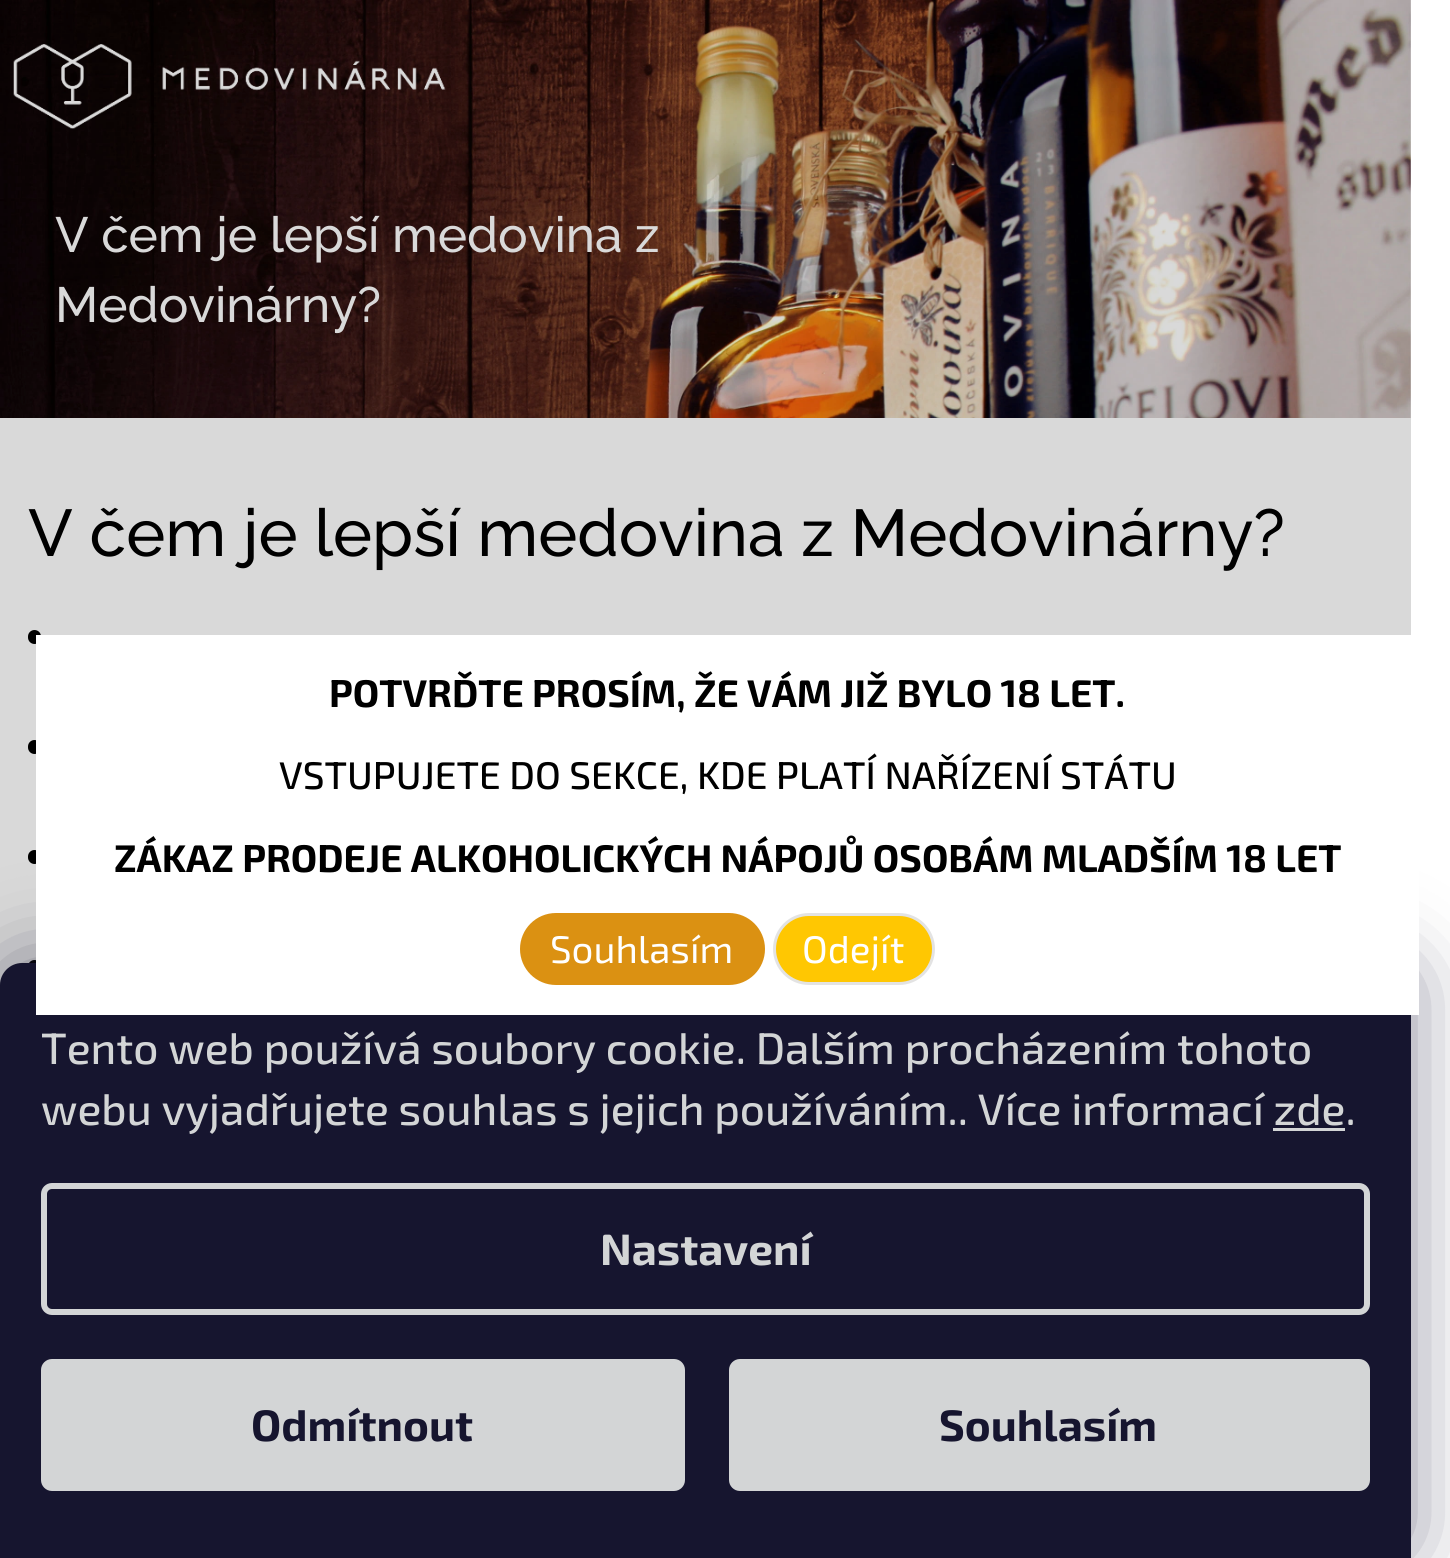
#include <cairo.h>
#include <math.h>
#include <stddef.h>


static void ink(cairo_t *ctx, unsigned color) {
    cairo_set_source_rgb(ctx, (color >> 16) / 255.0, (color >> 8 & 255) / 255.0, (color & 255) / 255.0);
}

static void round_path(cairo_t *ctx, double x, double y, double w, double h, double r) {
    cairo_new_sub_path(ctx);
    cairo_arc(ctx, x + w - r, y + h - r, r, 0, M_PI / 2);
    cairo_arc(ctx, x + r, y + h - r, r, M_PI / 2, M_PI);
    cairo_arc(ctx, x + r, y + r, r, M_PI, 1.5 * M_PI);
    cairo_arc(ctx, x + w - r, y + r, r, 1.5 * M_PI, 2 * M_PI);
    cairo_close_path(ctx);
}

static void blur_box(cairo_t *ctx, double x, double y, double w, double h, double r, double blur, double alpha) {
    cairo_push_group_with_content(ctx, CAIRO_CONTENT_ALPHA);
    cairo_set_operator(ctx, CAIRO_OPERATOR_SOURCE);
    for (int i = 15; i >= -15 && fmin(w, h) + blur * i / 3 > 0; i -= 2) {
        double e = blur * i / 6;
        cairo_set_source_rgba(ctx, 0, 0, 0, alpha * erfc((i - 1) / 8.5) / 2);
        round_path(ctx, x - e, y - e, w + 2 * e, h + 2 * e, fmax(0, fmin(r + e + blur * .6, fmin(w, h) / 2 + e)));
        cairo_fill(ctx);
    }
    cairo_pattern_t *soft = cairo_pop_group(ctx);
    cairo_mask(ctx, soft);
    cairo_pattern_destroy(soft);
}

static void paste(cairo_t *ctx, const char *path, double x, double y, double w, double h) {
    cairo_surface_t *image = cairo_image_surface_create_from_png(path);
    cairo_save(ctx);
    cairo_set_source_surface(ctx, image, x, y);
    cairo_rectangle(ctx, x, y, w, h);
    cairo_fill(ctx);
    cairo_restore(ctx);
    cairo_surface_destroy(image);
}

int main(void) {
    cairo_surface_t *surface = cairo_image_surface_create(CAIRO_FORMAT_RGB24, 1450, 1558);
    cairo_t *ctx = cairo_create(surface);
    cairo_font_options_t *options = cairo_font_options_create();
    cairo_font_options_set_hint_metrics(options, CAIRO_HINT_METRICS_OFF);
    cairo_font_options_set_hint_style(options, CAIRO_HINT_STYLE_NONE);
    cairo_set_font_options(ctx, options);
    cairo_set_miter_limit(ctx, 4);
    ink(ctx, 0xFFFFFF);
    cairo_paint(ctx);
    paste(ctx, "media/1.png", 0, 0, 1411, 418);
    paste(ctx, "media/2.png", 13, 44, 433, 85);
    cairo_select_font_face(ctx, "Raleway Medium", CAIRO_FONT_SLANT_NORMAL, CAIRO_FONT_WEIGHT_NORMAL);
    cairo_set_font_size(ctx, 49.5);
    ink(ctx, 0xFFFFFF);
    cairo_move_to(ctx, 55, 252);
    cairo_show_text(ctx, "V čem je lepší medovina z");
    cairo_move_to(ctx, 55, 322);
    cairo_show_text(ctx, "Medovinárny?");
    cairo_set_font_size(ctx, 66);
    ink(ctx, 0x000000);
    cairo_move_to(ctx, 28, 556);
    cairo_show_text(ctx, "V čem je lepší medovina z Medovinárny?");
    round_path(ctx, 28, 630, 13, 14, 6.5);
    cairo_fill(ctx);
    round_path(ctx, 28, 740, 13, 14, 6.5);
    cairo_fill(ctx);
    round_path(ctx, 28, 850, 13, 14, 6.5);
    cairo_fill(ctx);
    round_path(ctx, 28, 960, 13, 14, 6.5);
    cairo_fill(ctx);
    ink(ctx, 0x1B1939);
    blur_box(ctx, 0, 963, 1411, 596, 22, 41, 0.5);
    ink(ctx, 0x1A1937);
    cairo_new_path(ctx);
    cairo_move_to(ctx, 22, 963);
    cairo_line_to(ctx, 1389, 963);
    cairo_curve_to(ctx, 1401, 963, 1411, 973, 1411, 985);
    cairo_line_to(ctx, 1411, 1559);
    cairo_line_to(ctx, 0, 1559);
    cairo_line_to(ctx, 0, 985);
    cairo_curve_to(ctx, 0, 973, 10, 963, 22, 963);
    cairo_close_path(ctx);
    cairo_fill(ctx);
    cairo_select_font_face(ctx, "Exo 2 Medium", CAIRO_FONT_SLANT_NORMAL, CAIRO_FONT_WEIGHT_NORMAL);
    cairo_set_font_size(ctx, 44);
    ink(ctx, 0xF8FAFB);
    cairo_move_to(ctx, 41, 1064);
    cairo_show_text(ctx, "Tento web používá soubory cookie. Dalším procházením tohoto");
    cairo_move_to(ctx, 41, 1125);
    cairo_show_text(ctx, "webu vyjadřujete souhlas s jejich používáním.. Více informací zde.");
    cairo_rectangle(ctx, 1273, 1128, 72, 3);
    cairo_fill(ctx);
    round_path(ctx, 44, 1186, 1323, 126, 8);
    cairo_set_line_width(ctx, 6);
    cairo_stroke(ctx);
    cairo_select_font_face(ctx, "Exo 2", CAIRO_FONT_SLANT_NORMAL, CAIRO_FONT_WEIGHT_BOLD);
    cairo_move_to(ctx, 600, 1265);
    cairo_show_text(ctx, "Nastavení");
    round_path(ctx, 41, 1359, 644, 132, 11);
    cairo_fill(ctx);
    ink(ctx, 0x1A1937);
    cairo_move_to(ctx, 251, 1441);
    cairo_show_text(ctx, "Odmítnout");
    ink(ctx, 0xF8FAFB);
    round_path(ctx, 729, 1359, 641, 132, 11);
    cairo_fill(ctx);
    ink(ctx, 0x1A1937);
    cairo_move_to(ctx, 939, 1441);
    cairo_show_text(ctx, "Souhlasím");
    cairo_set_source_rgba(ctx, 0, 0, 0, 0.15);
    cairo_rectangle(ctx, 0, 0, 1411, 1558);
    cairo_fill(ctx);
    ink(ctx, 0xFFFFFF);
    cairo_rectangle(ctx, 36, 635, 1383, 380);
    cairo_fill(ctx);
    cairo_set_font_size(ctx, 38.5);
    ink(ctx, 0x000000);
    cairo_move_to(ctx, 329, 707);
    cairo_show_text(ctx, "POTVRĎTE PROSÍM, ŽE VÁM JIŽ BYLO 18 LET.");
    cairo_select_font_face(ctx, "Exo 2 Medium", CAIRO_FONT_SLANT_NORMAL, CAIRO_FONT_WEIGHT_NORMAL);
    cairo_move_to(ctx, 279, 789);
    cairo_show_text(ctx, "VSTUPUJETE DO SEKCE, KDE PLATÍ NAŘÍZENÍ STÁTU");
    cairo_select_font_face(ctx, "Exo 2", CAIRO_FONT_SLANT_NORMAL, CAIRO_FONT_WEIGHT_BOLD);
    cairo_move_to(ctx, 114, 872);
    cairo_show_text(ctx, "ZÁKAZ PRODEJE ALKOHOLICKÝCH NÁPOJŮ OSOBÁM MLADŠÍM 18 LET");
    ink(ctx, 0xDB9112);
    round_path(ctx, 521.5, 914.5, 242, 69, 34.5);
    cairo_fill_preserve(ctx);
    cairo_set_line_width(ctx, 3);
    cairo_stroke(ctx);
    cairo_select_font_face(ctx, "Exo 2", CAIRO_FONT_SLANT_NORMAL, CAIRO_FONT_WEIGHT_NORMAL);
    ink(ctx, 0xFFFFFF);
    cairo_move_to(ctx, 550, 963);
    cairo_show_text(ctx, "Souhlasím");
    ink(ctx, 0xFFC702);
    round_path(ctx, 774.5, 914.5, 159, 69, 34.5);
    cairo_fill_preserve(ctx);
    ink(ctx, 0xE3E3E3);
    cairo_stroke(ctx);
    ink(ctx, 0xFFFFFF);
    cairo_move_to(ctx, 802, 963);
    cairo_show_text(ctx, "Odejít");
    cairo_surface_write_to_png(surface, "image.png");
    cairo_font_options_destroy(options);
    cairo_destroy(ctx);
    cairo_surface_destroy(surface);
    return 0;
}
